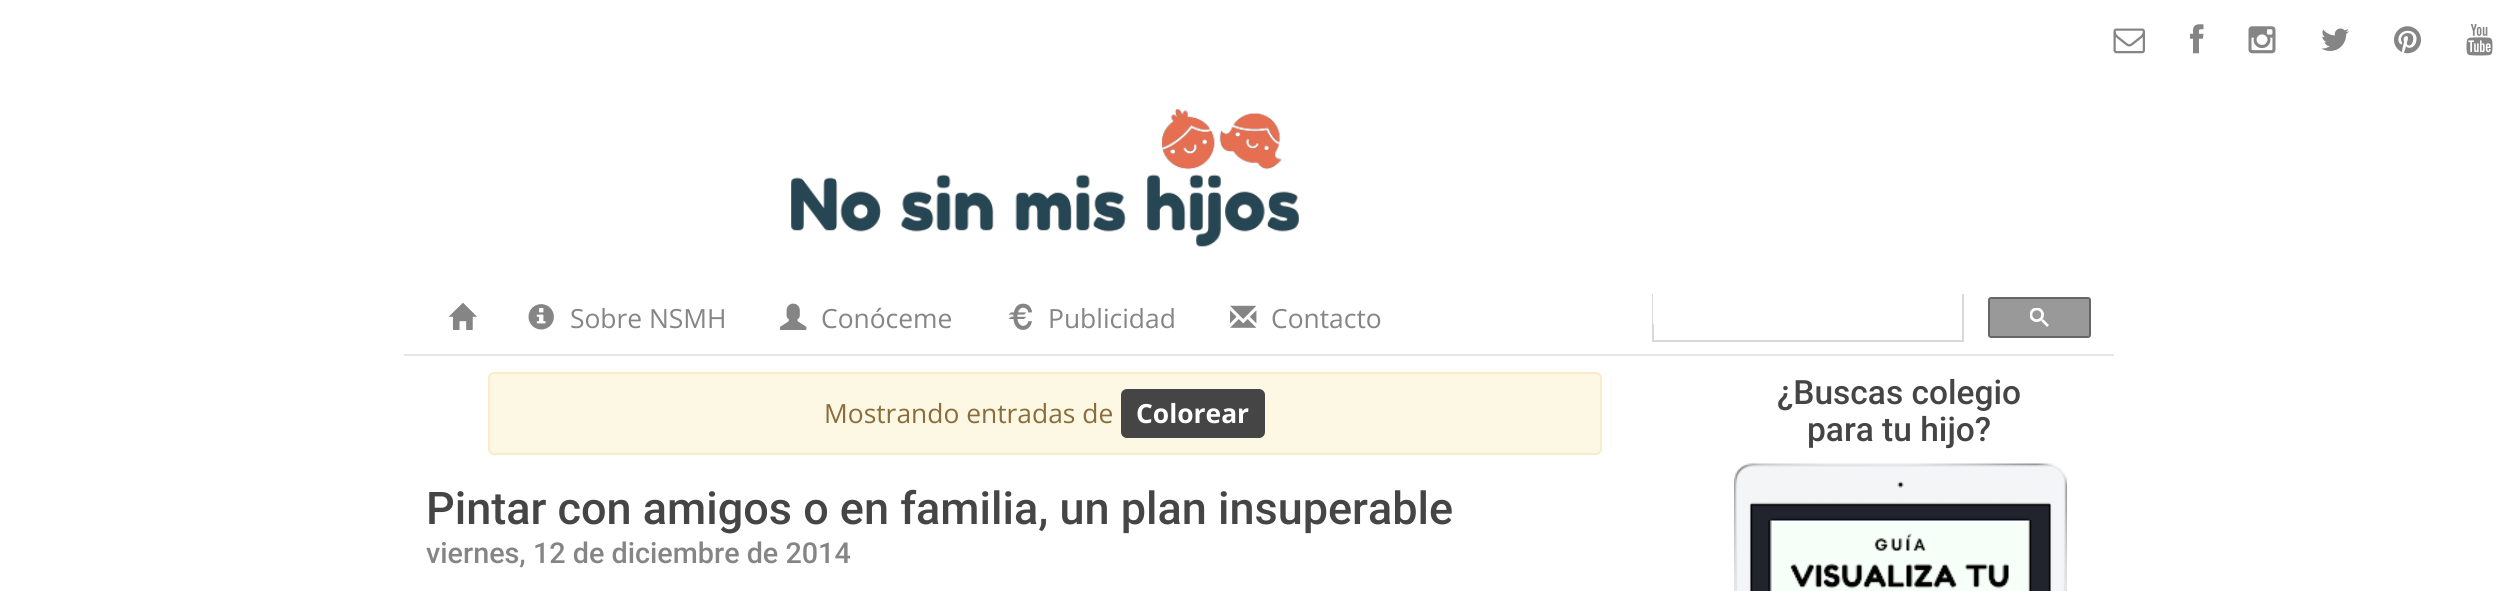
#include <cairo.h>
#include <math.h>
#include <stddef.h>


static void ink(cairo_t *ctx, unsigned color) {
    cairo_set_source_rgb(ctx, (color >> 16) / 255.0, (color >> 8 & 255) / 255.0, (color & 255) / 255.0);
}

static void round_path(cairo_t *ctx, double x, double y, double w, double h, double r) {
    cairo_new_sub_path(ctx);
    cairo_arc(ctx, x + w - r, y + h - r, r, 0, M_PI / 2);
    cairo_arc(ctx, x + r, y + h - r, r, M_PI / 2, M_PI);
    cairo_arc(ctx, x + r, y + r, r, M_PI, 1.5 * M_PI);
    cairo_arc(ctx, x + w - r, y + r, r, 1.5 * M_PI, 2 * M_PI);
    cairo_close_path(ctx);
}

static void paste(cairo_t *ctx, const char *path, double x, double y, double w, double h) {
    cairo_surface_t *image = cairo_image_surface_create_from_png(path);
    cairo_save(ctx);
    cairo_set_source_surface(ctx, image, x, y);
    cairo_rectangle(ctx, x, y, w, h);
    cairo_fill(ctx);
    cairo_restore(ctx);
    cairo_surface_destroy(image);
}

int main(void) {
    cairo_surface_t *surface = cairo_image_surface_create(CAIRO_FORMAT_RGB24, 2517, 591);
    cairo_t *ctx = cairo_create(surface);
    cairo_font_options_t *options = cairo_font_options_create();
    cairo_font_options_set_hint_metrics(options, CAIRO_HINT_METRICS_OFF);
    cairo_font_options_set_hint_style(options, CAIRO_HINT_STYLE_NONE);
    cairo_set_font_options(ctx, options);
    cairo_set_miter_limit(ctx, 4);
    ink(ctx, 0xFFFFFF);
    cairo_paint(ctx);
    paste(ctx, "media/1.png", 2113, 28, 32, 26);
    paste(ctx, "media/2.png", 2190, 24, 14, 30);
    paste(ctx, "media/3.png", 2248, 26, 28, 28);
    paste(ctx, "media/4.png", 2321, 28, 28, 23);
    paste(ctx, "media/5.png", 2394, 26, 27, 28);
    paste(ctx, "media/6.png", 2466, 24, 27, 32);
    paste(ctx, "media/7.png", 791, 109, 508, 138);
    ink(ctx, 0xE5E5E5);
    cairo_rectangle(ctx, 404, 354, 1710, 2);
    cairo_fill(ctx);
    paste(ctx, "media/8.png", 448, 303, 29, 27);
    paste(ctx, "media/9.png", 528, 304, 26, 26);
    cairo_select_font_face(ctx, "Open Sans", CAIRO_FONT_SLANT_NORMAL, CAIRO_FONT_WEIGHT_NORMAL);
    cairo_set_font_size(ctx, 26.4);
    ink(ctx, 0x858585);
    cairo_move_to(ctx, 570, 328);
    cairo_show_text(ctx, "Sobre NSMH");
    paste(ctx, "media/10.png", 780, 303, 27, 27);
    cairo_move_to(ctx, 821, 328);
    cairo_show_text(ctx, "Conóceme");
    paste(ctx, "media/11.png", 1008, 303, 24, 27);
    cairo_move_to(ctx, 1048, 328);
    cairo_show_text(ctx, "Publicidad");
    paste(ctx, "media/12.png", 1230, 305, 27, 23);
    cairo_move_to(ctx, 1271, 328);
    cairo_show_text(ctx, "Contacto");
    cairo_rectangle(ctx, 1653, 295, 310, 46);
    ink(ctx, 0xD9D9D9);
    cairo_stroke(ctx);
    ink(ctx, 0xFFFFFF);
    cairo_rectangle(ctx, 1653, 294, 309, 30);
    cairo_fill(ctx);
    ink(ctx, 0x999999);
    round_path(ctx, 1989, 298, 101, 39, 2);
    cairo_fill_preserve(ctx);
    ink(ctx, 0x666666);
    cairo_stroke(ctx);
    paste(ctx, "media/13.png", 2030, 308, 19, 19);
    ink(ctx, 0xFCF8E3);
    round_path(ctx, 489, 373, 1112, 81, 5);
    cairo_fill_preserve(ctx);
    ink(ctx, 0xFAEBCC);
    cairo_stroke(ctx);
    ink(ctx, 0x8A6D3B);
    cairo_move_to(ctx, 824, 423);
    cairo_show_text(ctx, "Mostrando entradas de");
    ink(ctx, 0x454545);
    round_path(ctx, 1121, 389, 144, 49, 6);
    cairo_fill(ctx);
    cairo_select_font_face(ctx, "Open Sans", CAIRO_FONT_SLANT_NORMAL, CAIRO_FONT_WEIGHT_BOLD);
    ink(ctx, 0xFFFFFF);
    cairo_move_to(ctx, 1136, 423);
    cairo_show_text(ctx, "Colorear");
    cairo_select_font_face(ctx, "Roboto Medium", CAIRO_FONT_SLANT_NORMAL, CAIRO_FONT_WEIGHT_NORMAL);
    cairo_set_font_size(ctx, 45);
    ink(ctx, 0x454545);
    cairo_move_to(ctx, 426, 524);
    cairo_show_text(ctx, "Pintar con amigos o en familia, un plan insuperable");
    cairo_set_font_size(ctx, 28.75);
    ink(ctx, 0x858585);
    cairo_move_to(ctx, 426, 563);
    cairo_show_text(ctx, "viernes, 12 de diciembre de 2014");
    cairo_set_font_size(ctx, 33.5);
    ink(ctx, 0x454545);
    cairo_move_to(ctx, 1777, 404);
    cairo_show_text(ctx, "¿Buscas colegio");
    cairo_move_to(ctx, 1807, 441);
    cairo_show_text(ctx, "para tu hijo?");
    paste(ctx, "media/14.png", 1734, 463, 333, 128);
    cairo_surface_write_to_png(surface, "image.png");
    cairo_font_options_destroy(options);
    cairo_destroy(ctx);
    cairo_surface_destroy(surface);
    return 0;
}
